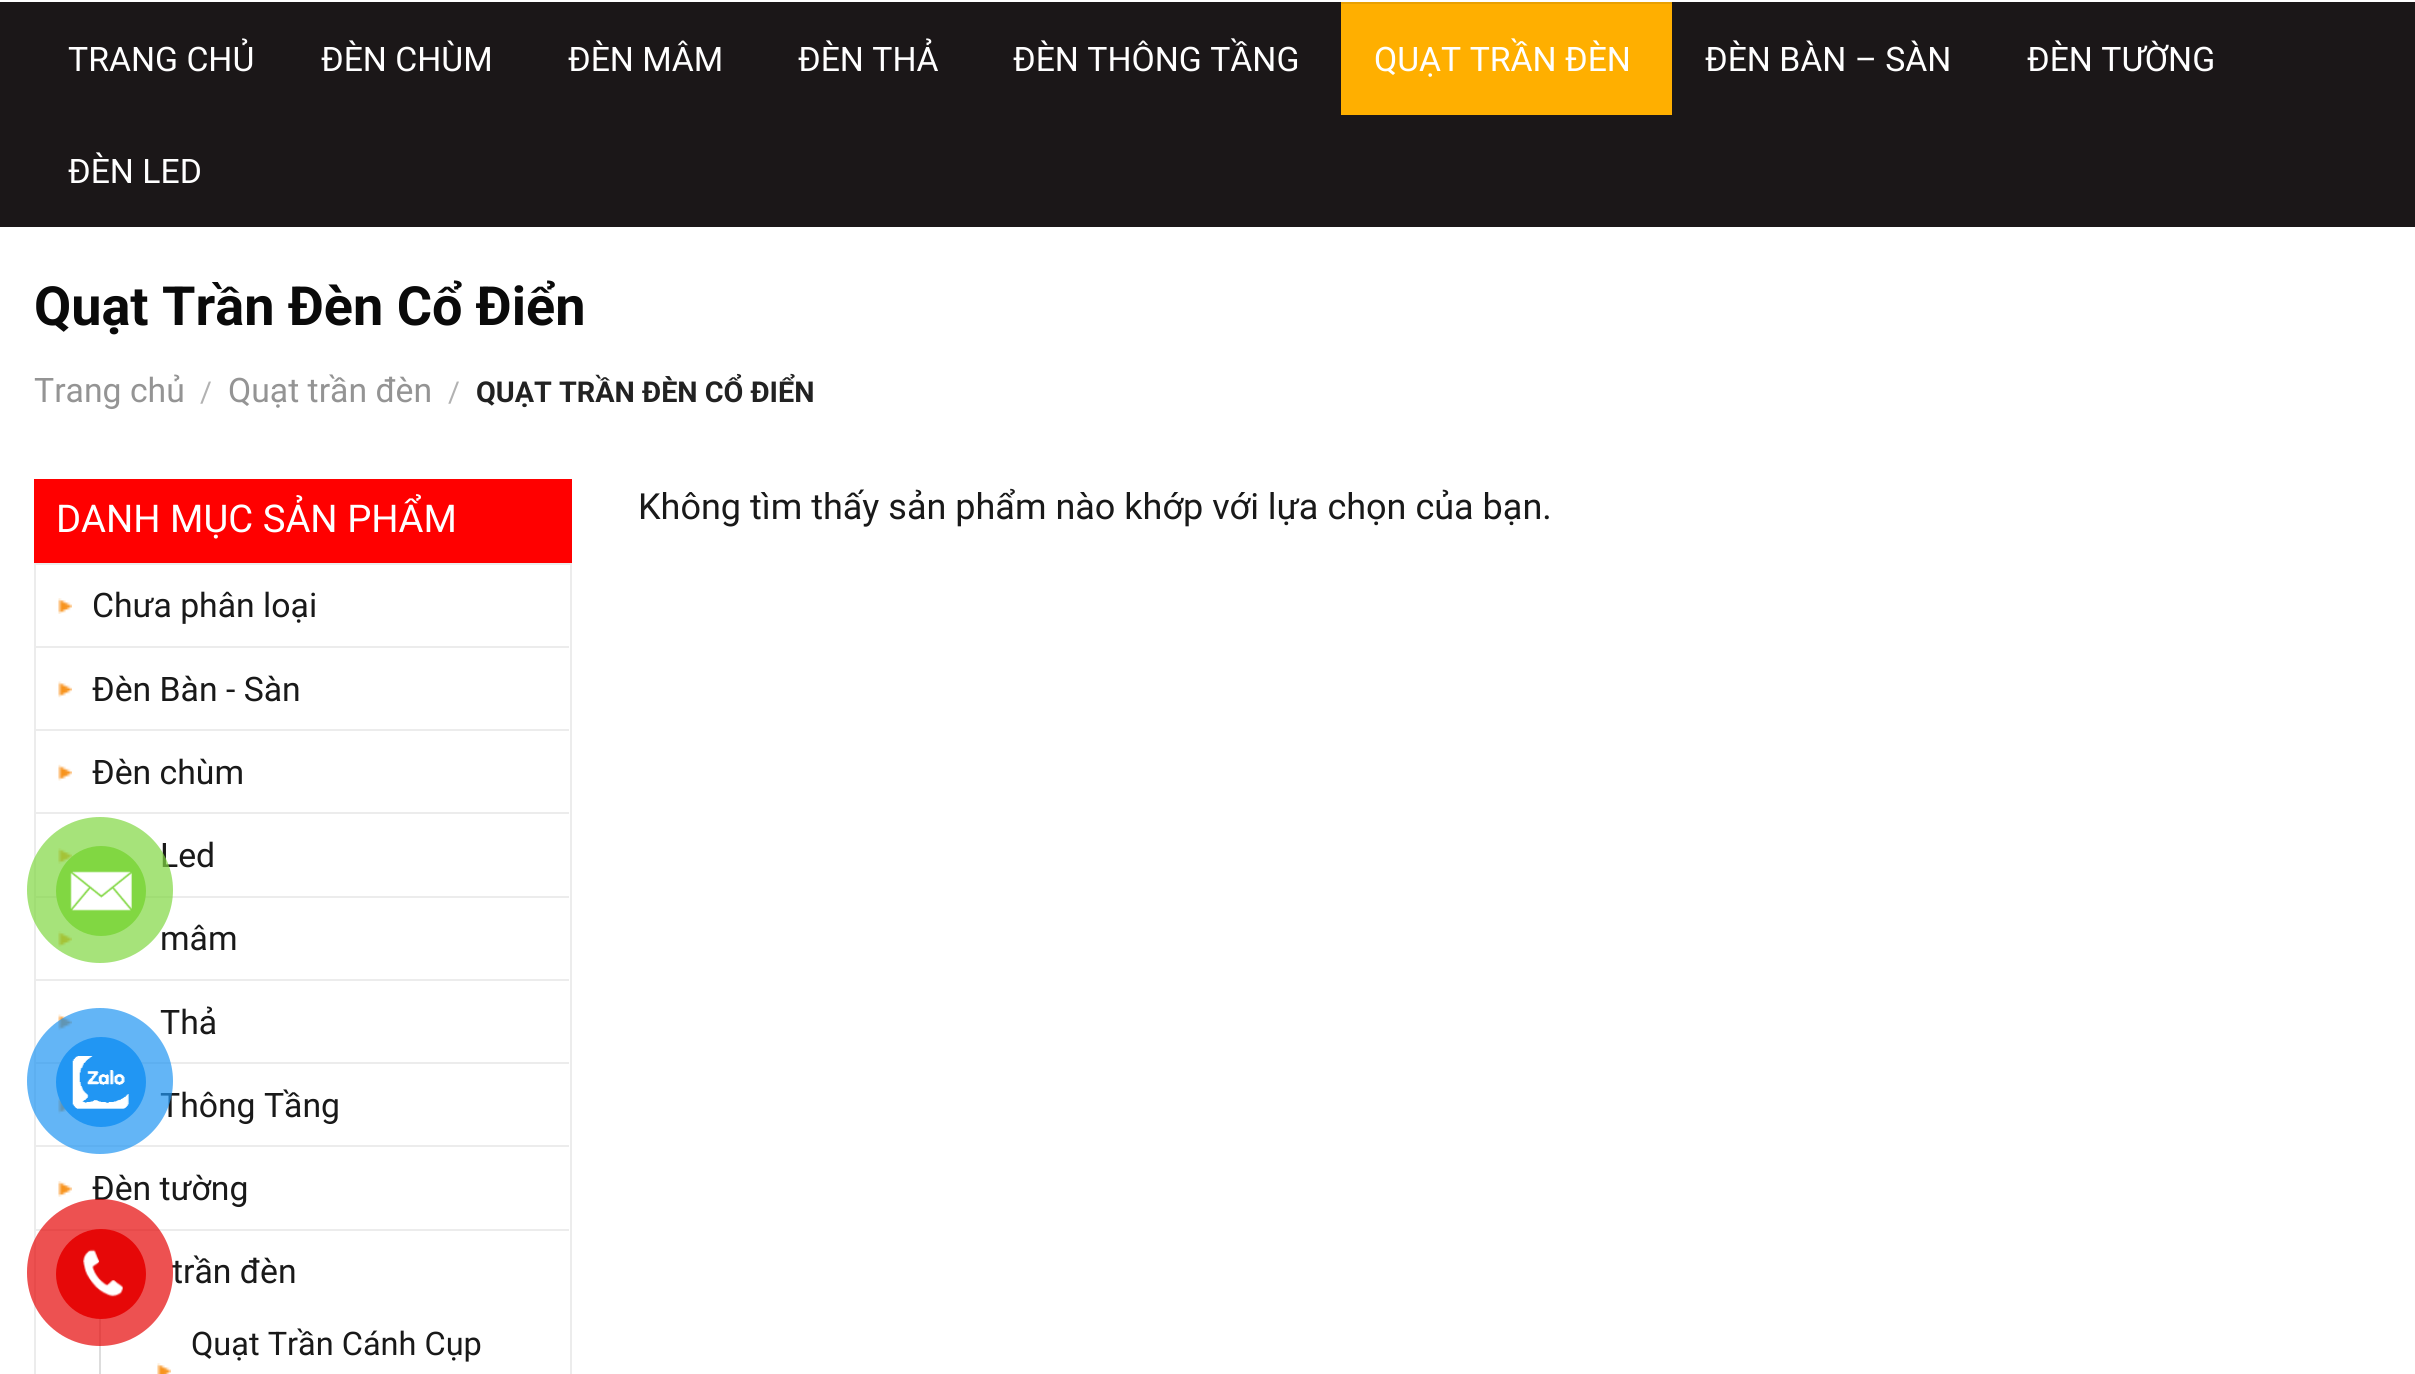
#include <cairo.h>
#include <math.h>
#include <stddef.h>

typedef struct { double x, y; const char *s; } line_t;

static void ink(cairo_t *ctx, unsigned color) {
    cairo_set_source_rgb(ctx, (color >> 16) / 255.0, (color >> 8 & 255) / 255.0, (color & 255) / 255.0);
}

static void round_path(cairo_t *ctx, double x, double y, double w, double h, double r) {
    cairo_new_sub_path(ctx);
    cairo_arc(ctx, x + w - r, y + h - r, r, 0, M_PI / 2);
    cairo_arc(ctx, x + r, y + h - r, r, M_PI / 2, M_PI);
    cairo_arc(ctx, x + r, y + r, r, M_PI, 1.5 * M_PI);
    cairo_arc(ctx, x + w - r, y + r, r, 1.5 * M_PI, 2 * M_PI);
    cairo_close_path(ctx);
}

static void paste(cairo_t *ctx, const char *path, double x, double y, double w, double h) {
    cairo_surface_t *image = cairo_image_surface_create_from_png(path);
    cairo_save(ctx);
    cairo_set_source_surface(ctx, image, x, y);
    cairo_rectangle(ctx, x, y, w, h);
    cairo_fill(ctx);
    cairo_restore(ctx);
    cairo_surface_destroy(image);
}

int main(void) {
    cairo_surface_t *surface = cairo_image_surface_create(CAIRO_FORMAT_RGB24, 2415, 1374);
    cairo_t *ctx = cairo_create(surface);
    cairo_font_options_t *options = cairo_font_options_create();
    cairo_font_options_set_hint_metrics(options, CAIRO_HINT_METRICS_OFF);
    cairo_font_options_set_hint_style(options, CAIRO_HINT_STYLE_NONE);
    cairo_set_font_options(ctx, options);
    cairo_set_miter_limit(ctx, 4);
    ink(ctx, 0xFFFFFF);
    cairo_paint(ctx);
    ink(ctx, 0x1B1718);
    cairo_rectangle(ctx, 0, 2, 2415, 225);
    cairo_fill(ctx);
    cairo_select_font_face(ctx, "Roboto", CAIRO_FONT_SLANT_NORMAL, CAIRO_FONT_WEIGHT_NORMAL);
    cairo_set_font_size(ctx, 33.75);
    ink(ctx, 0xFFFFFF);
    {
        static const line_t items[] = {
            {68, 71, "TRANG CHỦ"},
            {321, 71, "ĐÈN CHÙM"},
            {568, 71, "ĐÈN MÂM"},
            {798, 71, "ĐÈN THẢ"},
            {1013, 71, "ĐÈN THÔNG TẦNG"},
        };
        for (size_t i = 0; i < sizeof items / sizeof *items; i++) {
            cairo_move_to(ctx, items[i].x, items[i].y);
            cairo_show_text(ctx, items[i].s);
        }
    }
    ink(ctx, 0xFFAF00);
    cairo_rectangle(ctx, 1341, 4, 331, 111);
    cairo_fill(ctx);
    ink(ctx, 0xE8A003);
    cairo_rectangle(ctx, 1341, 2, 331, 2);
    cairo_fill(ctx);
    ink(ctx, 0xFFFFFF);
    {
        static const line_t items[] = {
            {1374, 71, "QUẠT TRẦN ĐÈN"},
            {1705, 71, "ĐÈN BÀN – SÀN"},
            {2027, 71, "ĐÈN TƯỜNG"},
            {68, 183, "ĐÈN LED"},
        };
        for (size_t i = 0; i < sizeof items / sizeof *items; i++) {
            cairo_move_to(ctx, items[i].x, items[i].y);
            cairo_show_text(ctx, items[i].s);
        }
    }
    cairo_select_font_face(ctx, "Roboto", CAIRO_FONT_SLANT_NORMAL, CAIRO_FONT_WEIGHT_BOLD);
    cairo_set_font_size(ctx, 54);
    ink(ctx, 0x0A0A0A);
    cairo_move_to(ctx, 34, 325);
    cairo_show_text(ctx, "Quạt Trần Đèn Cổ Điển");
    cairo_select_font_face(ctx, "Roboto", CAIRO_FONT_SLANT_NORMAL, CAIRO_FONT_WEIGHT_NORMAL);
    cairo_set_font_size(ctx, 33.75);
    ink(ctx, 0x949494);
    cairo_move_to(ctx, 34, 402);
    cairo_show_text(ctx, "Trang chủ");
    cairo_set_font_size(ctx, 28.75);
    ink(ctx, 0xB2B2B2);
    cairo_move_to(ctx, 200, 402);
    cairo_show_text(ctx, "/");
    cairo_set_font_size(ctx, 33.75);
    ink(ctx, 0x949494);
    cairo_move_to(ctx, 228, 402);
    cairo_show_text(ctx, "Quạt trần đèn");
    cairo_set_font_size(ctx, 28.75);
    ink(ctx, 0xB2B2B2);
    cairo_move_to(ctx, 448, 402);
    cairo_show_text(ctx, "/");
    cairo_select_font_face(ctx, "Roboto", CAIRO_FONT_SLANT_NORMAL, CAIRO_FONT_WEIGHT_BOLD);
    ink(ctx, 0x222222);
    cairo_move_to(ctx, 476, 402);
    cairo_show_text(ctx, "QUẠT TRẦN ĐÈN CỔ ĐIỂN");
    ink(ctx, 0xFF0000);
    cairo_rectangle(ctx, 34, 479, 538, 84);
    cairo_fill(ctx);
    cairo_select_font_face(ctx, "Roboto", CAIRO_FONT_SLANT_NORMAL, CAIRO_FONT_WEIGHT_NORMAL);
    cairo_set_font_size(ctx, 38.25);
    ink(ctx, 0xFFFFFF);
    cairo_move_to(ctx, 56, 532);
    cairo_show_text(ctx, "DANH MỤC SẢN PHẨM");
    cairo_rectangle(ctx, 35, 564, 536, 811);
    ink(ctx, 0xECECEC);
    cairo_stroke(ctx);
    paste(ctx, "media/1.png", 58, 598, 14, 16);
    cairo_set_font_size(ctx, 33.75);
    ink(ctx, 0x191919);
    cairo_move_to(ctx, 92, 617);
    cairo_show_text(ctx, "Chưa phân loại");
    paste(ctx, "media/2.png", 58, 681, 14, 17);
    ink(ctx, 0xECECEC);
    cairo_rectangle(ctx, 36, 646, 533, 2);
    cairo_fill(ctx);
    ink(ctx, 0x191919);
    cairo_move_to(ctx, 92, 701);
    cairo_show_text(ctx, "Đèn Bàn - Sàn");
    paste(ctx, "media/3.png", 58, 764, 14, 17);
    ink(ctx, 0xECECEC);
    cairo_rectangle(ctx, 36, 729, 533, 2);
    cairo_fill(ctx);
    ink(ctx, 0x191919);
    cairo_move_to(ctx, 92, 784);
    cairo_show_text(ctx, "Đèn chùm");
    paste(ctx, "media/4.png", 58, 848, 14, 16);
    ink(ctx, 0xECECEC);
    cairo_rectangle(ctx, 36, 812, 533, 2);
    cairo_fill(ctx);
    ink(ctx, 0x191919);
    cairo_move_to(ctx, 160, 867);
    cairo_show_text(ctx, "Led");
    paste(ctx, "media/1.png", 58, 931, 14, 16);
    ink(ctx, 0xECECEC);
    cairo_rectangle(ctx, 36, 896, 533, 2);
    cairo_fill(ctx);
    ink(ctx, 0x191919);
    cairo_move_to(ctx, 160, 950);
    cairo_show_text(ctx, "mâm");
    paste(ctx, "media/2.png", 58, 1014, 14, 17);
    ink(ctx, 0xECECEC);
    cairo_rectangle(ctx, 36, 979, 533, 2);
    cairo_fill(ctx);
    ink(ctx, 0x191919);
    cairo_move_to(ctx, 160, 1034);
    cairo_show_text(ctx, "Thả");
    paste(ctx, "media/5.png", 58, 1097, 12, 17);
    ink(ctx, 0xECECEC);
    cairo_rectangle(ctx, 36, 1062, 533, 2);
    cairo_fill(ctx);
    ink(ctx, 0x191919);
    cairo_move_to(ctx, 160, 1117);
    cairo_show_text(ctx, "Thông Tầng");
    paste(ctx, "media/4.png", 58, 1181, 14, 16);
    ink(ctx, 0xECECEC);
    cairo_rectangle(ctx, 36, 1145, 533, 2);
    cairo_fill(ctx);
    ink(ctx, 0x191919);
    cairo_move_to(ctx, 92, 1200);
    cairo_show_text(ctx, "Đèn tường");
    ink(ctx, 0xECECEC);
    cairo_rectangle(ctx, 36, 1229, 533, 2);
    cairo_fill(ctx);
    ink(ctx, 0x191919);
    cairo_move_to(ctx, 172, 1283);
    cairo_show_text(ctx, "trần đèn");
    ink(ctx, 0xDDDDDD);
    cairo_rectangle(ctx, 99, 1312, 2, 62);
    cairo_fill(ctx);
    paste(ctx, "media/6.png", 157, 1363, 14, 11);
    cairo_set_font_size(ctx, 32.5);
    ink(ctx, 0x191919);
    cairo_move_to(ctx, 191, 1355);
    cairo_show_text(ctx, "Quạt Trần Cánh Cụp");
    cairo_set_font_size(ctx, 36);
    cairo_move_to(ctx, 638, 519);
    cairo_show_text(ctx, "Không tìm thấy sản phẩm nào khớp với lựa chọn của bạn.");
    cairo_set_source_rgba(ctx, 0.506, 0.843, 0.259, 0.7);
    cairo_new_path(ctx);
    cairo_arc(ctx, 100, 890, 73, 0, 2 * M_PI);
    cairo_fill(ctx);
    ink(ctx, 0x81D742);
    cairo_arc(ctx, 101, 891, 45, 0, 2 * M_PI);
    cairo_fill(ctx);
    paste(ctx, "media/7.png", 70, 871, 62, 40);
    cairo_set_source_rgba(ctx, 0.129, 0.588, 0.953, 0.7);
    cairo_arc(ctx, 100, 1081, 73, 0, 2 * M_PI);
    cairo_fill(ctx);
    ink(ctx, 0x2196F3);
    cairo_arc(ctx, 101, 1082, 45, 0, 2 * M_PI);
    cairo_fill(ctx);
    paste(ctx, "media/8.png", 72, 1056, 57, 53);
    cairo_set_source_rgba(ctx, 0.902, 0.031, 0.031, 0.7);
    round_path(ctx, 27, 1199, 146, 147, 73);
    cairo_fill(ctx);
    ink(ctx, 0xE60808);
    cairo_arc(ctx, 101, 1274, 45, 0, 2 * M_PI);
    cairo_fill(ctx);
    paste(ctx, "media/9.png", 83, 1249, 40, 48);
    cairo_surface_write_to_png(surface, "image.png");
    cairo_font_options_destroy(options);
    cairo_destroy(ctx);
    cairo_surface_destroy(surface);
    return 0;
}
